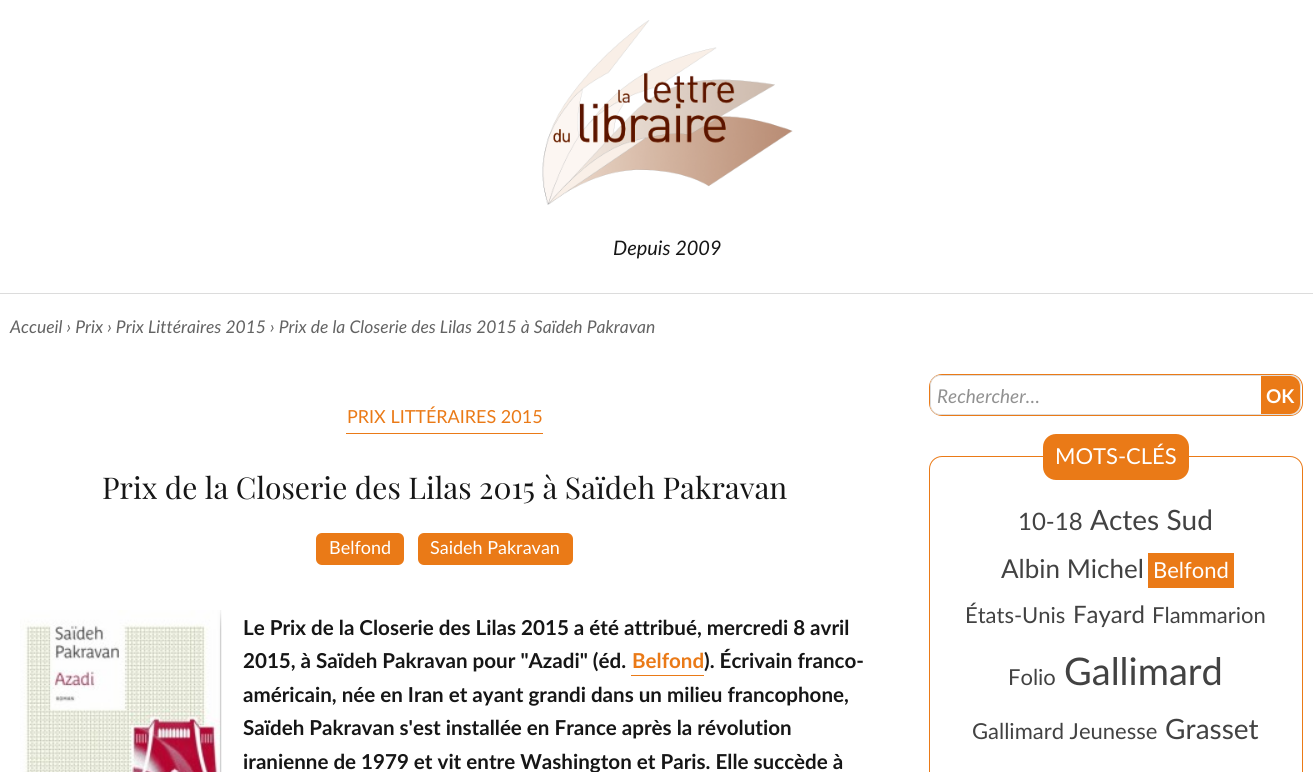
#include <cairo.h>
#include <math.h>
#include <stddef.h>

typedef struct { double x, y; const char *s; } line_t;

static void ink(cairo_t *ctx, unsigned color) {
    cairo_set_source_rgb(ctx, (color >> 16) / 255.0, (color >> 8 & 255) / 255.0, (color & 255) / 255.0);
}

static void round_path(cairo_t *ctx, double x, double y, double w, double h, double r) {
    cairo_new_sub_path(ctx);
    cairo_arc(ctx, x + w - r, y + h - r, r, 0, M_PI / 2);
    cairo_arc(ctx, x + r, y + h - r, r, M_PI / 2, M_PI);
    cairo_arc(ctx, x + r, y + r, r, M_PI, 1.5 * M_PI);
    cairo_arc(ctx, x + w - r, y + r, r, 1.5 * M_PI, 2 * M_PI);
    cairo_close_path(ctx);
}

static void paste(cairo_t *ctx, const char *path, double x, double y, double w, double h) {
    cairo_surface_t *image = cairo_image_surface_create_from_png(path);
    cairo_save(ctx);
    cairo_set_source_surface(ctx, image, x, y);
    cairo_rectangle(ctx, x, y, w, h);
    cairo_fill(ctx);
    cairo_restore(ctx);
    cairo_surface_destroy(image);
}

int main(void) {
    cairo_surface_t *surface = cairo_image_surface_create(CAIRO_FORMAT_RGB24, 1313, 772);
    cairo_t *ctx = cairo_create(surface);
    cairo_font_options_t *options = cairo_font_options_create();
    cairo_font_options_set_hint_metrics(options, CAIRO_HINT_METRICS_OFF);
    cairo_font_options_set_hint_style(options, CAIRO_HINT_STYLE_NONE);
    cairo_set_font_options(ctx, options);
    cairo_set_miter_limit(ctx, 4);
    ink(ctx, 0xFFFFFF);
    cairo_paint(ctx);
    ink(ctx, 0xDCDCDC);
    cairo_rectangle(ctx, 0, 293, 1313, 1);
    cairo_fill(ctx);
    paste(ctx, "media/1.png", 542, 20, 251, 185);
    cairo_select_font_face(ctx, "Lato", CAIRO_FONT_SLANT_ITALIC, CAIRO_FONT_WEIGHT_NORMAL);
    cairo_set_font_size(ctx, 20);
    ink(ctx, 0x161616);
    cairo_move_to(ctx, 613, 255);
    cairo_show_text(ctx, "Depuis 2009");
    cairo_set_font_size(ctx, 17.5);
    ink(ctx, 0x636363);
    cairo_move_to(ctx, 10, 333);
    cairo_show_text(ctx, "Accueil › Prix › Prix Littéraires 2015 › Prix de la Closerie des Lilas 2015 à Saïdeh Pakravan");
    cairo_select_font_face(ctx, "Lato", CAIRO_FONT_SLANT_NORMAL, CAIRO_FONT_WEIGHT_NORMAL);
    cairo_set_font_size(ctx, 18);
    ink(ctx, 0xEA7A17);
    cairo_move_to(ctx, 347, 423);
    cairo_show_text(ctx, "PRIX LITTÉRAIRES 2015");
    cairo_rectangle(ctx, 346, 433, 197, 1);
    cairo_fill(ctx);
    cairo_select_font_face(ctx, "Playfair Display", CAIRO_FONT_SLANT_NORMAL, CAIRO_FONT_WEIGHT_NORMAL);
    cairo_set_font_size(ctx, 30);
    ink(ctx, 0x161616);
    cairo_move_to(ctx, 102, 499);
    cairo_show_text(ctx, "Prix de la Closerie des Lilas 2015 à Saïdeh Pakravan");
    ink(ctx, 0xEA7A17);
    round_path(ctx, 316, 533, 88, 32, 6);
    cairo_fill(ctx);
    cairo_select_font_face(ctx, "Lato", CAIRO_FONT_SLANT_NORMAL, CAIRO_FONT_WEIGHT_NORMAL);
    cairo_set_font_size(ctx, 18);
    ink(ctx, 0xFFFFFF);
    cairo_move_to(ctx, 329, 554);
    cairo_show_text(ctx, "Belfond");
    ink(ctx, 0xEA7A17);
    round_path(ctx, 418, 533, 155, 32, 6);
    cairo_fill(ctx);
    ink(ctx, 0xFFFFFF);
    cairo_move_to(ctx, 430, 554);
    cairo_show_text(ctx, "Saideh Pakravan");
    paste(ctx, "media/2.png", 20, 610, 202, 162);
    cairo_select_font_face(ctx, "Lato", CAIRO_FONT_SLANT_NORMAL, CAIRO_FONT_WEIGHT_BOLD);
    cairo_set_font_size(ctx, 20.6);
    ink(ctx, 0x161616);
    cairo_move_to(ctx, 243, 635);
    cairo_show_text(ctx, "Le Prix de la Closerie des Lilas 2015 a été attribué, mercredi 8 avril");
    cairo_move_to(ctx, 243, 668);
    cairo_show_text(ctx, "2015, à Saïdeh Pakravan pour \"Azadi\" (éd.");
    ink(ctx, 0xEA7A17);
    cairo_move_to(ctx, 632, 668);
    cairo_show_text(ctx, "Belfond");
    cairo_rectangle(ctx, 631, 675, 73, 1);
    cairo_fill(ctx);
    ink(ctx, 0x161616);
    {
        static const line_t items[] = {
            {704, 668, "). Écrivain franco-"},
            {243, 702, "américain, née en Iran et ayant grandi dans un milieu francophone,"},
            {243, 735, "Saïdeh Pakravan s'est installée en France après la révolution"},
            {243, 769, "iranienne de 1979 et vit entre Washington et Paris. Elle succède à"},
        };
        for (size_t i = 0; i < sizeof items / sizeof *items; i++) {
            cairo_move_to(ctx, items[i].x, items[i].y);
            cairo_show_text(ctx, items[i].s);
        }
    }
    round_path(ctx, 929.5, 374.5, 373, 41, 12.5);
    ink(ctx, 0xEA7A17);
    cairo_set_line_width(ctx, 1);
    cairo_stroke(ctx);
    round_path(ctx, 930.5, 375.5, 370, 39, 9.5);
    ink(ctx, 0xDCDCDC);
    cairo_stroke(ctx);
    cairo_select_font_face(ctx, "Lato", CAIRO_FONT_SLANT_ITALIC, CAIRO_FONT_WEIGHT_NORMAL);
    cairo_set_font_size(ctx, 19);
    ink(ctx, 0x919191);
    cairo_move_to(ctx, 937, 403);
    cairo_show_text(ctx, "Rechercher…");
    ink(ctx, 0xEA7A17);
    cairo_new_path(ctx);
    cairo_move_to(ctx, 1261, 376);
    cairo_line_to(ctx, 1290, 376);
    cairo_curve_to(ctx, 1295.5, 376, 1300, 380.5, 1300, 386);
    cairo_line_to(ctx, 1300, 404);
    cairo_curve_to(ctx, 1300, 409.5, 1295.5, 414, 1290, 414);
    cairo_line_to(ctx, 1261, 414);
    cairo_close_path(ctx);
    cairo_fill(ctx);
    cairo_select_font_face(ctx, "Lato", CAIRO_FONT_SLANT_NORMAL, CAIRO_FONT_WEIGHT_BOLD);
    ink(ctx, 0xFFFFFF);
    cairo_move_to(ctx, 1266, 403);
    cairo_show_text(ctx, "OK");
    round_path(ctx, 929.5, 456.5, 373, 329, 12.5);
    ink(ctx, 0xEA7A17);
    cairo_stroke(ctx);
    round_path(ctx, 1043, 434, 146, 46, 13);
    cairo_fill(ctx);
    cairo_select_font_face(ctx, "Lato", CAIRO_FONT_SLANT_NORMAL, CAIRO_FONT_WEIGHT_NORMAL);
    cairo_set_font_size(ctx, 22);
    ink(ctx, 0xFFFFFF);
    cairo_move_to(ctx, 1055, 464);
    cairo_show_text(ctx, "MOTS-CLÉS");
    cairo_set_font_size(ctx, 24);
    ink(ctx, 0x424242);
    cairo_move_to(ctx, 1018, 530);
    cairo_show_text(ctx, "10-18");
    cairo_set_font_size(ctx, 28);
    cairo_move_to(ctx, 1090, 530);
    cairo_show_text(ctx, "Actes Sud");
    cairo_set_font_size(ctx, 26);
    cairo_move_to(ctx, 1001, 578);
    cairo_show_text(ctx, "Albin Michel");
    ink(ctx, 0xEA7A17);
    cairo_rectangle(ctx, 1148, 553, 86, 35);
    cairo_fill(ctx);
    cairo_set_font_size(ctx, 22);
    ink(ctx, 0xFFFFFF);
    cairo_move_to(ctx, 1153, 578);
    cairo_show_text(ctx, "Belfond");
    ink(ctx, 0x424242);
    cairo_move_to(ctx, 965, 623);
    cairo_show_text(ctx, "États-Unis");
    cairo_set_font_size(ctx, 24);
    cairo_move_to(ctx, 1073, 623);
    cairo_show_text(ctx, "Fayard");
    cairo_set_font_size(ctx, 22);
    cairo_move_to(ctx, 1152, 623);
    cairo_show_text(ctx, "Flammarion");
    cairo_move_to(ctx, 1008, 685);
    cairo_show_text(ctx, "Folio");
    cairo_set_font_size(ctx, 38);
    cairo_move_to(ctx, 1064, 685);
    cairo_show_text(ctx, "Gallimard");
    cairo_set_font_size(ctx, 22);
    cairo_move_to(ctx, 972, 739);
    cairo_show_text(ctx, "Gallimard Jeunesse");
    cairo_set_font_size(ctx, 28);
    cairo_move_to(ctx, 1165, 739);
    cairo_show_text(ctx, "Grasset");
    cairo_surface_write_to_png(surface, "image.png");
    cairo_font_options_destroy(options);
    cairo_destroy(ctx);
    cairo_surface_destroy(surface);
    return 0;
}
